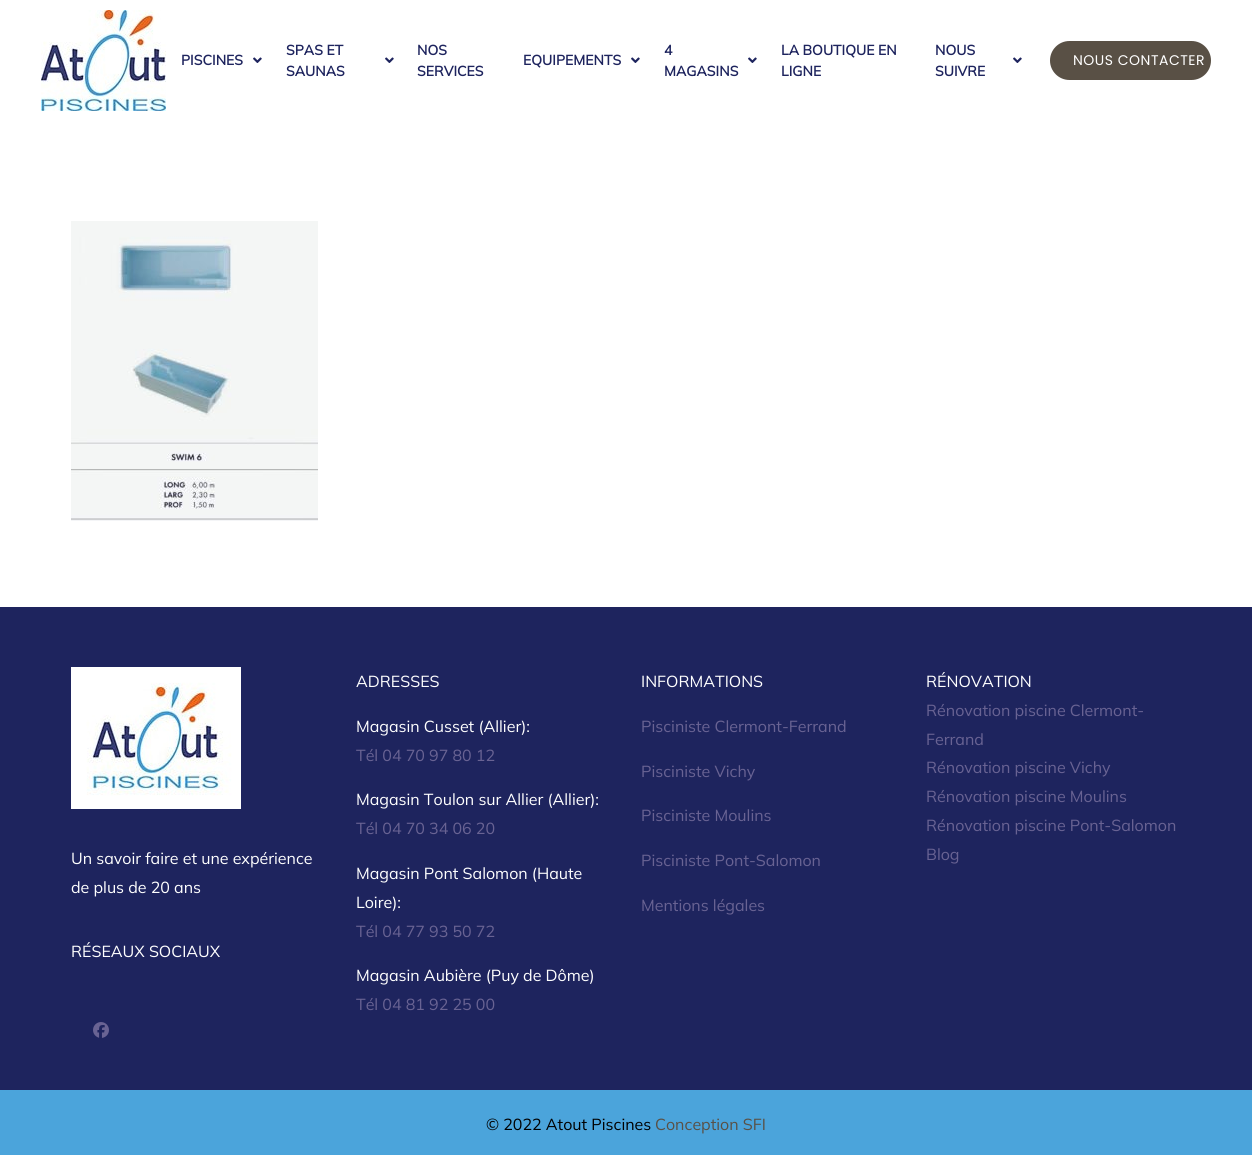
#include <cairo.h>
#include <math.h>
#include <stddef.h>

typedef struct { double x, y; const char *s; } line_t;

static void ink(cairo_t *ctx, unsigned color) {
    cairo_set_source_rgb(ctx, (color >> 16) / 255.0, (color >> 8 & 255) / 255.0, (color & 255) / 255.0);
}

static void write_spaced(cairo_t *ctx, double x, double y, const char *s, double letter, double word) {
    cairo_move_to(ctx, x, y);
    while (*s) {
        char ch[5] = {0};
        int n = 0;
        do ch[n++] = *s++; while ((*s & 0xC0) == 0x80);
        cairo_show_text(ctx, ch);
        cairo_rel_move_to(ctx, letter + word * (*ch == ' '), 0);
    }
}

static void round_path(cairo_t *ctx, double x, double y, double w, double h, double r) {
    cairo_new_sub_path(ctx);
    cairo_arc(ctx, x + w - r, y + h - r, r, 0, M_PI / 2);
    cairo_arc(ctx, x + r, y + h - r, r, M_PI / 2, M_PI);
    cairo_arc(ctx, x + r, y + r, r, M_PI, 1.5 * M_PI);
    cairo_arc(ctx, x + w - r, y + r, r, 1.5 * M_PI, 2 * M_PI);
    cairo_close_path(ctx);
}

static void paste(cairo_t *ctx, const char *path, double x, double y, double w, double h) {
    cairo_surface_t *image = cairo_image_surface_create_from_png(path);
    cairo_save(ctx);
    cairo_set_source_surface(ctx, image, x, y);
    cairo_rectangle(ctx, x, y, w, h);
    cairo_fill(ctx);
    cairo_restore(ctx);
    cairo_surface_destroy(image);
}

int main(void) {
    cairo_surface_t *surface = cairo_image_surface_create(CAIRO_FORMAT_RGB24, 1252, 1155);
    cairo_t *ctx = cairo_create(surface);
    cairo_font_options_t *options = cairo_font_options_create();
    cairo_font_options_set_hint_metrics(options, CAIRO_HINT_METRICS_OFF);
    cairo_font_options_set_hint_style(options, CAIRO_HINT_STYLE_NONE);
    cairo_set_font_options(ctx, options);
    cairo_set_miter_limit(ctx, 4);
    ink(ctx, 0xFFFFFF);
    cairo_paint(ctx);
    paste(ctx, "media/1.png", 41, 10, 125, 101);
    cairo_select_font_face(ctx, "Mulish", CAIRO_FONT_SLANT_NORMAL, CAIRO_FONT_WEIGHT_BOLD);
    cairo_set_font_size(ctx, 14);
    ink(ctx, 0x1E245E);
    cairo_move_to(ctx, 181, 65);
    cairo_show_text(ctx, "PISCINES");
    paste(ctx, "media/2.png", 253, 57, 9, 6);
    cairo_move_to(ctx, 286, 55);
    cairo_show_text(ctx, "SPAS ET");
    paste(ctx, "media/2.png", 385, 57, 9, 6);
    {
        static const line_t items[] = {
            {286, 76, "SAUNAS"},
            {417, 55, "NOS"},
            {417, 76, "SERVICES"},
            {523, 65, "EQUIPEMENTS"},
        };
        for (size_t i = 0; i < sizeof items / sizeof *items; i++) {
            cairo_move_to(ctx, items[i].x, items[i].y);
            cairo_show_text(ctx, items[i].s);
        }
    }
    paste(ctx, "media/2.png", 631, 57, 9, 6);
    cairo_move_to(ctx, 664, 55);
    cairo_show_text(ctx, "4");
    paste(ctx, "media/2.png", 748, 57, 9, 6);
    {
        static const line_t items[] = {
            {664, 76, "MAGASINS"},
            {781, 55, "LA BOUTIQUE EN"},
            {781, 76, "LIGNE"},
            {935, 55, "NOUS"},
        };
        for (size_t i = 0; i < sizeof items / sizeof *items; i++) {
            cairo_move_to(ctx, items[i].x, items[i].y);
            cairo_show_text(ctx, items[i].s);
        }
    }
    paste(ctx, "media/2.png", 1013, 57, 9, 6);
    cairo_move_to(ctx, 935, 76);
    cairo_show_text(ctx, "SUIVRE");
    ink(ctx, 0x595045);
    round_path(ctx, 1050, 41, 161, 39, 19.5);
    cairo_fill(ctx);
    cairo_select_font_face(ctx, "Poppins", CAIRO_FONT_SLANT_NORMAL, CAIRO_FONT_WEIGHT_NORMAL);
    ink(ctx, 0xFFFFFF);
    write_spaced(ctx, 1073, 65, "NOUS CONTACTER", 0.5, 0);
    paste(ctx, "media/3.png", 71, 221, 247, 300);
    ink(ctx, 0x1E245E);
    cairo_rectangle(ctx, 0, 607, 1252, 483);
    cairo_fill(ctx);
    paste(ctx, "media/4.png", 71, 667, 170, 142);
    cairo_select_font_face(ctx, "Mulish ExtraLight", CAIRO_FONT_SLANT_NORMAL, CAIRO_FONT_WEIGHT_NORMAL);
    cairo_set_font_size(ctx, 16);
    ink(ctx, 0xFFFFFF);
    {
        static const line_t items[] = {
            {71, 864, "Un savoir faire et une expérience"},
            {71, 893, "de plus de 20 ans"},
            {71, 957, "RÉSEAUX SOCIAUX"},
        };
        for (size_t i = 0; i < sizeof items / sizeof *items; i++) {
            cairo_move_to(ctx, items[i].x, items[i].y);
            cairo_show_text(ctx, items[i].s);
        }
    }
    paste(ctx, "media/5.png", 93, 1022, 16, 16);
    cairo_move_to(ctx, 356, 687);
    cairo_show_text(ctx, "ADRESSES");
    cairo_move_to(ctx, 356, 732);
    cairo_show_text(ctx, "Magasin Cusset (Allier):");
    ink(ctx, 0x696393);
    cairo_move_to(ctx, 356, 761);
    cairo_show_text(ctx, "Tél 04 70 97 80 12");
    ink(ctx, 0xFFFFFF);
    cairo_move_to(ctx, 356, 805);
    cairo_show_text(ctx, "Magasin Toulon sur Allier (Allier):");
    ink(ctx, 0x696393);
    cairo_move_to(ctx, 356, 834);
    cairo_show_text(ctx, "Tél 04 70 34 06 20");
    ink(ctx, 0xFFFFFF);
    cairo_move_to(ctx, 356, 879);
    cairo_show_text(ctx, "Magasin Pont Salomon (Haute");
    cairo_move_to(ctx, 356, 908);
    cairo_show_text(ctx, "Loire):");
    ink(ctx, 0x696393);
    cairo_move_to(ctx, 356, 937);
    cairo_show_text(ctx, "Tél 04 77 93 50 72");
    ink(ctx, 0xFFFFFF);
    cairo_move_to(ctx, 356, 981);
    cairo_show_text(ctx, "Magasin Aubière (Puy de Dôme)");
    ink(ctx, 0x696393);
    cairo_move_to(ctx, 356, 1010);
    cairo_show_text(ctx, "Tél 04 81 92 25 00");
    ink(ctx, 0xFFFFFF);
    cairo_move_to(ctx, 641, 687);
    cairo_show_text(ctx, "INFORMATIONS");
    ink(ctx, 0x696393);
    {
        static const line_t items[] = {
            {641, 732, "Pisciniste Clermont-Ferrand"},
            {641, 777, "Pisciniste Vichy"},
            {641, 821, "Pisciniste Moulins"},
            {641, 866, "Pisciniste Pont-Salomon"},
            {641, 911, "Mentions légales"},
        };
        for (size_t i = 0; i < sizeof items / sizeof *items; i++) {
            cairo_move_to(ctx, items[i].x, items[i].y);
            cairo_show_text(ctx, items[i].s);
        }
    }
    ink(ctx, 0xFFFFFF);
    cairo_move_to(ctx, 926, 687);
    cairo_show_text(ctx, "RÉNOVATION");
    ink(ctx, 0x696393);
    {
        static const line_t items[] = {
            {926, 716, "Rénovation piscine Clermont-"},
            {926, 745, "Ferrand"},
            {926, 773, "Rénovation piscine Vichy"},
            {926, 802, "Rénovation piscine Moulins"},
            {926, 831, "Rénovation piscine Pont-Salomon"},
            {926, 860, "Blog"},
        };
        for (size_t i = 0; i < sizeof items / sizeof *items; i++) {
            cairo_move_to(ctx, items[i].x, items[i].y);
            cairo_show_text(ctx, items[i].s);
        }
    }
    ink(ctx, 0x4BA4DB);
    cairo_rectangle(ctx, 0, 1090, 1252, 65);
    cairo_fill(ctx);
    ink(ctx, 0x000000);
    cairo_move_to(ctx, 486, 1130);
    cairo_show_text(ctx, "© 2022 Atout Piscines");
    ink(ctx, 0x595045);
    cairo_move_to(ctx, 655, 1130);
    cairo_show_text(ctx, "Conception SFI");
    cairo_surface_write_to_png(surface, "image.png");
    cairo_font_options_destroy(options);
    cairo_destroy(ctx);
    cairo_surface_destroy(surface);
    return 0;
}
